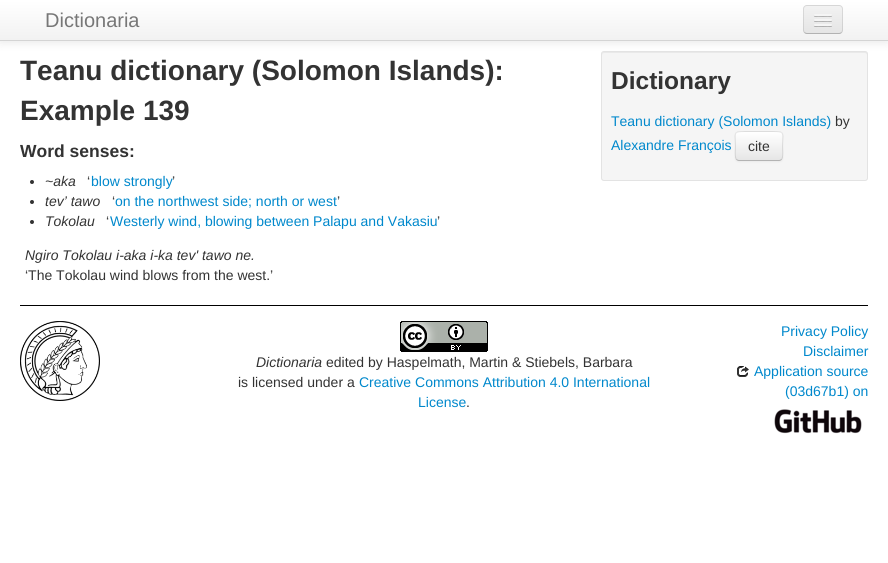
#include <cairo.h>
#include <math.h>
#include <stddef.h>


static void ink(cairo_t *ctx, unsigned color) {
    cairo_set_source_rgb(ctx, (color >> 16) / 255.0, (color >> 8 & 255) / 255.0, (color & 255) / 255.0);
}

static void round_path(cairo_t *ctx, double x, double y, double w, double h, double r) {
    cairo_new_sub_path(ctx);
    cairo_arc(ctx, x + w - r, y + h - r, r, 0, M_PI / 2);
    cairo_arc(ctx, x + r, y + h - r, r, M_PI / 2, M_PI);
    cairo_arc(ctx, x + r, y + r, r, M_PI, 1.5 * M_PI);
    cairo_arc(ctx, x + w - r, y + r, r, 1.5 * M_PI, 2 * M_PI);
    cairo_close_path(ctx);
}

static void blur_box(cairo_t *ctx, double x, double y, double w, double h, double r, double blur, double alpha) {
    cairo_push_group_with_content(ctx, CAIRO_CONTENT_ALPHA);
    cairo_set_operator(ctx, CAIRO_OPERATOR_SOURCE);
    for (int i = 15; i >= -15 && fmin(w, h) + blur * i / 3 > 0; i -= 2) {
        double e = blur * i / 6;
        cairo_set_source_rgba(ctx, 0, 0, 0, alpha * erfc((i - 1) / 8.5) / 2);
        round_path(ctx, x - e, y - e, w + 2 * e, h + 2 * e, fmax(0, fmin(r + e + blur * .6, fmin(w, h) / 2 + e)));
        cairo_fill(ctx);
    }
    cairo_pattern_t *soft = cairo_pop_group(ctx);
    cairo_mask(ctx, soft);
    cairo_pattern_destroy(soft);
}

static void paste(cairo_t *ctx, const char *path, double x, double y, double w, double h) {
    cairo_surface_t *image = cairo_image_surface_create_from_png(path);
    cairo_save(ctx);
    cairo_set_source_surface(ctx, image, x, y);
    cairo_rectangle(ctx, x, y, w, h);
    cairo_fill(ctx);
    cairo_restore(ctx);
    cairo_surface_destroy(image);
}

int main(void) {
    cairo_surface_t *surface = cairo_image_surface_create(CAIRO_FORMAT_RGB24, 888, 563);
    cairo_t *ctx = cairo_create(surface);
    cairo_font_options_t *options = cairo_font_options_create();
    cairo_font_options_set_hint_metrics(options, CAIRO_HINT_METRICS_OFF);
    cairo_font_options_set_hint_style(options, CAIRO_HINT_STYLE_NONE);
    cairo_set_font_options(ctx, options);
    cairo_set_miter_limit(ctx, 4);
    cairo_pattern_t *gradient;
    ink(ctx, 0xFFFFFF);
    cairo_paint(ctx);
    ink(ctx, 0x000000);
    blur_box(ctx, 0, 1, 888, 41, 0, 5, 0.1);
    gradient = cairo_pattern_create_linear(444, 0, 444, 40);
    cairo_pattern_add_color_stop_rgba(gradient, 0, 1, 1, 1, 1);
    cairo_pattern_add_color_stop_rgba(gradient, 1, 0.949, 0.949, 0.949, 1);
    cairo_set_source(ctx, gradient);
    cairo_pattern_destroy(gradient);
    cairo_rectangle(ctx, 0, 0, 888, 40);
    cairo_fill(ctx);
    ink(ctx, 0xD4D4D4);
    cairo_rectangle(ctx, 0, 40, 888, 1);
    cairo_fill(ctx);
    cairo_select_font_face(ctx, "Liberation Sans", CAIRO_FONT_SLANT_NORMAL, CAIRO_FONT_WEIGHT_NORMAL);
    cairo_set_font_size(ctx, 20);
    ink(ctx, 0x777777);
    cairo_move_to(ctx, 45, 27);
    cairo_show_text(ctx, "Dictionaria");
    ink(ctx, 0xEDEDED);
    round_path(ctx, 803, 5, 40, 29, 4);
    cairo_fill(ctx);
    cairo_save(ctx);
    round_path(ctx, 803, 5, 40, 29, 4);
    cairo_clip(ctx);
    gradient = cairo_pattern_create_linear(823, 6, 823, 33);
    cairo_pattern_add_color_stop_rgba(gradient, 0, 0.949, 0.949, 0.949, 1);
    cairo_pattern_add_color_stop_rgba(gradient, 1, 0.898, 0.898, 0.898, 1);
    cairo_set_source(ctx, gradient);
    cairo_pattern_destroy(gradient);
    cairo_rectangle(ctx, 803, 6, 40, 27);
    cairo_fill(ctx);
    cairo_restore(ctx);
    cairo_new_path(ctx);
    cairo_move_to(ctx, 841.5, 32.5);
    cairo_curve_to(ctx, 841, 33, 840, 33.5, 839, 33.5);
    cairo_line_to(ctx, 807, 33.5);
    cairo_curve_to(ctx, 806, 33.5, 805, 33, 804.5, 32.5);
    ink(ctx, 0xB2B2B2);
    cairo_set_line_width(ctx, 1);
    cairo_stroke(ctx);
    cairo_new_path(ctx);
    cairo_move_to(ctx, 804.5, 32.5);
    cairo_curve_to(ctx, 804, 32, 803.5, 31, 803.5, 30);
    cairo_line_to(ctx, 803.5, 9);
    cairo_curve_to(ctx, 803.5, 8, 804, 7, 804.5, 6.5);
    cairo_curve_to(ctx, 805, 6, 806, 5.5, 807, 5.5);
    cairo_line_to(ctx, 839, 5.5);
    cairo_curve_to(ctx, 840, 5.5, 841, 6, 841.5, 6.5);
    cairo_curve_to(ctx, 842, 7, 842.5, 8, 842.5, 9);
    cairo_line_to(ctx, 842.5, 30);
    cairo_curve_to(ctx, 842.5, 31, 842, 32, 841.5, 32.5);
    cairo_set_source_rgba(ctx, 0, 0, 0, 0.1);
    cairo_stroke(ctx);
    ink(ctx, 0xB2B2B2);
    cairo_new_path(ctx);
    cairo_move_to(ctx, 814, 15.5);
    cairo_curve_to(ctx, 813, 17.5, 817.5, 17, 817.5, 17);
    cairo_line_to(ctx, 828.5, 17);
    cairo_curve_to(ctx, 828.5, 17, 833, 17.5, 832, 15.5);
    cairo_curve_to(ctx, 831, 16.5, 824.5, 16, 823, 16);
    cairo_curve_to(ctx, 821.5, 16, 815, 16.5, 814, 15.5);
    cairo_close_path(ctx);
    cairo_fill(ctx);
    ink(ctx, 0xF5F5F5);
    round_path(ctx, 814, 14, 18, 2, 1);
    cairo_fill(ctx);
    ink(ctx, 0xB0B0B0);
    cairo_new_path(ctx);
    cairo_move_to(ctx, 814, 20.5);
    cairo_curve_to(ctx, 813, 22.5, 817.5, 22, 817.5, 22);
    cairo_line_to(ctx, 828.5, 22);
    cairo_curve_to(ctx, 828.5, 22, 833, 22.5, 832, 20.5);
    cairo_curve_to(ctx, 831, 21.5, 824.5, 21, 823, 21);
    cairo_curve_to(ctx, 821.5, 21, 815, 21.5, 814, 20.5);
    cairo_close_path(ctx);
    cairo_fill(ctx);
    ink(ctx, 0xF5F5F5);
    round_path(ctx, 814, 19, 18, 2, 1);
    cairo_fill(ctx);
    ink(ctx, 0xAEAEAE);
    cairo_new_path(ctx);
    cairo_move_to(ctx, 814, 25.5);
    cairo_curve_to(ctx, 813, 27.5, 817.5, 27, 817.5, 27);
    cairo_line_to(ctx, 828.5, 27);
    cairo_curve_to(ctx, 828.5, 27, 833, 27.5, 832, 25.5);
    cairo_curve_to(ctx, 831, 26.5, 824.5, 26, 823, 26);
    cairo_curve_to(ctx, 821.5, 26, 815, 26.5, 814, 25.5);
    cairo_close_path(ctx);
    cairo_fill(ctx);
    ink(ctx, 0xF5F5F5);
    round_path(ctx, 814, 24, 18, 2, 1);
    cairo_fill(ctx);
    cairo_select_font_face(ctx, "Liberation Sans", CAIRO_FONT_SLANT_NORMAL, CAIRO_FONT_WEIGHT_BOLD);
    cairo_set_font_size(ctx, 28);
    ink(ctx, 0x333333);
    cairo_move_to(ctx, 20, 80);
    cairo_show_text(ctx, "Teanu dictionary (Solomon Islands):");
    cairo_move_to(ctx, 20, 120);
    cairo_show_text(ctx, "Example 139");
    cairo_set_font_size(ctx, 17.5);
    cairo_move_to(ctx, 20, 157);
    cairo_show_text(ctx, "Word senses:");
    cairo_select_font_face(ctx, "Liberation Sans", CAIRO_FONT_SLANT_ITALIC, CAIRO_FONT_WEIGHT_NORMAL);
    cairo_set_font_size(ctx, 14);
    cairo_move_to(ctx, 45, 186);
    cairo_show_text(ctx, "~aka");
    cairo_select_font_face(ctx, "Liberation Sans", CAIRO_FONT_SLANT_NORMAL, CAIRO_FONT_WEIGHT_NORMAL);
    cairo_move_to(ctx, 87, 186);
    cairo_show_text(ctx, "‘");
    ink(ctx, 0x0088CC);
    cairo_move_to(ctx, 91, 186);
    cairo_show_text(ctx, "blow strongly");
    ink(ctx, 0x333333);
    cairo_move_to(ctx, 172, 186);
    cairo_show_text(ctx, "’");
    cairo_new_path(ctx);
    cairo_arc(ctx, 32, 182, 2, 0, 2 * M_PI);
    cairo_fill(ctx);
    cairo_select_font_face(ctx, "Liberation Sans", CAIRO_FONT_SLANT_ITALIC, CAIRO_FONT_WEIGHT_NORMAL);
    cairo_move_to(ctx, 45, 206);
    cairo_show_text(ctx, "tev’ tawo");
    cairo_select_font_face(ctx, "Liberation Sans", CAIRO_FONT_SLANT_NORMAL, CAIRO_FONT_WEIGHT_NORMAL);
    cairo_move_to(ctx, 112, 206);
    cairo_show_text(ctx, "‘");
    ink(ctx, 0x0088CC);
    cairo_move_to(ctx, 115, 206);
    cairo_show_text(ctx, "on the northwest side; north or west");
    ink(ctx, 0x333333);
    cairo_move_to(ctx, 337, 206);
    cairo_show_text(ctx, "’");
    cairo_new_path(ctx);
    cairo_arc(ctx, 32, 202, 2, 0, 2 * M_PI);
    cairo_fill(ctx);
    cairo_select_font_face(ctx, "Liberation Sans", CAIRO_FONT_SLANT_ITALIC, CAIRO_FONT_WEIGHT_NORMAL);
    cairo_move_to(ctx, 45, 226);
    cairo_show_text(ctx, "Tokolau");
    cairo_select_font_face(ctx, "Liberation Sans", CAIRO_FONT_SLANT_NORMAL, CAIRO_FONT_WEIGHT_NORMAL);
    cairo_move_to(ctx, 106, 226);
    cairo_show_text(ctx, "‘");
    ink(ctx, 0x0088CC);
    cairo_move_to(ctx, 110, 226);
    cairo_show_text(ctx, "Westerly wind, blowing between Palapu and Vakasiu");
    ink(ctx, 0x333333);
    cairo_move_to(ctx, 437, 226);
    cairo_show_text(ctx, "’");
    cairo_new_path(ctx);
    cairo_arc(ctx, 32, 222, 2, 0, 2 * M_PI);
    cairo_fill(ctx);
    cairo_select_font_face(ctx, "Liberation Sans", CAIRO_FONT_SLANT_ITALIC, CAIRO_FONT_WEIGHT_NORMAL);
    cairo_move_to(ctx, 25, 260);
    cairo_show_text(ctx, "Ngiro Tokolau i-aka i-ka tev' tawo ne.");
    cairo_select_font_face(ctx, "Liberation Sans", CAIRO_FONT_SLANT_NORMAL, CAIRO_FONT_WEIGHT_NORMAL);
    cairo_move_to(ctx, 25, 280);
    cairo_show_text(ctx, "‘The Tokolau wind blows from the west.’");
    ink(ctx, 0xF5F5F5);
    round_path(ctx, 601, 51, 267, 130, 3);
    cairo_fill(ctx);
    ink(ctx, 0xE9E9E9);
    cairo_new_path(ctx);
    cairo_move_to(ctx, 604, 53);
    cairo_line_to(ctx, 865, 53);
    cairo_curve_to(ctx, 866, 53, 867, 54, 867, 55);
    cairo_line_to(ctx, 867, 53);
    cairo_line_to(ctx, 866, 52);
    cairo_line_to(ctx, 604, 52);
    cairo_curve_to(ctx, 602, 52, 602, 54, 602, 55);
    cairo_curve_to(ctx, 602, 54, 603, 53, 604, 53);
    cairo_close_path(ctx);
    cairo_fill(ctx);
    round_path(ctx, 601.5, 51.5, 266, 129, 2.5);
    ink(ctx, 0xE3E3E3);
    cairo_stroke(ctx);
    cairo_select_font_face(ctx, "Liberation Sans", CAIRO_FONT_SLANT_NORMAL, CAIRO_FONT_WEIGHT_BOLD);
    cairo_set_font_size(ctx, 24.5);
    ink(ctx, 0x333333);
    cairo_move_to(ctx, 611, 89);
    cairo_show_text(ctx, "Dictionary");
    cairo_select_font_face(ctx, "Liberation Sans", CAIRO_FONT_SLANT_NORMAL, CAIRO_FONT_WEIGHT_NORMAL);
    cairo_set_font_size(ctx, 14);
    ink(ctx, 0x0088CC);
    cairo_move_to(ctx, 611, 126);
    cairo_show_text(ctx, "Teanu dictionary (Solomon Islands)");
    ink(ctx, 0x333333);
    cairo_move_to(ctx, 835, 126);
    cairo_show_text(ctx, "by");
    ink(ctx, 0x0088CC);
    cairo_move_to(ctx, 611, 150);
    cairo_show_text(ctx, "Alexandre François");
    ink(ctx, 0x000000);
    blur_box(ctx, 735, 132, 48, 30, 4, 1, 0.05);
    ink(ctx, 0xF5F5F5);
    round_path(ctx, 735, 131, 48, 30, 4);
    cairo_fill(ctx);
    cairo_save(ctx);
    round_path(ctx, 735, 131, 48, 30, 4);
    cairo_clip(ctx);
    gradient = cairo_pattern_create_linear(759, 132, 759, 160);
    cairo_pattern_add_color_stop_rgba(gradient, 0, 1, 1, 1, 1);
    cairo_pattern_add_color_stop_rgba(gradient, 1, 0.902, 0.902, 0.902, 1);
    cairo_set_source(ctx, gradient);
    cairo_pattern_destroy(gradient);
    cairo_rectangle(ctx, 735, 132, 48, 28);
    cairo_fill(ctx);
    cairo_restore(ctx);
    ink(ctx, 0xFFFFFF);
    cairo_set_fill_rule(ctx, CAIRO_FILL_RULE_EVEN_ODD);
    cairo_new_path(ctx);
    cairo_move_to(ctx, 739, 133);
    cairo_line_to(ctx, 766, 133);
    cairo_curve_to(ctx, 775, 133, 779, 132, 781, 134);
    cairo_curve_to(ctx, 782, 134, 782, 135, 782, 137);
    cairo_curve_to(ctx, 782, 130, 779, 132, 772, 132);
    cairo_line_to(ctx, 746, 132);
    cairo_curve_to(ctx, 743, 132, 736, 130, 736, 135);
    cairo_curve_to(ctx, 736, 134, 737, 133, 739, 133);
    cairo_close_path(ctx);
    cairo_move_to(ctx, 736, 158);
    cairo_line_to(ctx, 736, 151);
    cairo_close_path(ctx);
    cairo_fill(ctx);
    cairo_new_path(ctx);
    cairo_move_to(ctx, 781.5, 159.5);
    cairo_curve_to(ctx, 781, 160, 780, 160.5, 779, 160.5);
    cairo_line_to(ctx, 739, 160.5);
    cairo_curve_to(ctx, 738, 160.5, 737, 160, 736.5, 159.5);
    ink(ctx, 0xB3B3B3);
    cairo_stroke(ctx);
    cairo_new_path(ctx);
    cairo_move_to(ctx, 736.5, 159.5);
    cairo_curve_to(ctx, 734.5, 157.5, 735.5, 149, 735.5, 146);
    cairo_curve_to(ctx, 735.5, 132.5, 732.5, 131.5, 745.5, 131.5);
    cairo_line_to(ctx, 772.5, 131.5);
    cairo_curve_to(ctx, 785.5, 131.5, 782.5, 132.5, 782.5, 146);
    cairo_curve_to(ctx, 782.5, 149, 783.5, 157.5, 781.5, 159.5);
    cairo_set_source_rgba(ctx, 0, 0, 0, 0.1);
    cairo_stroke(ctx);
    ink(ctx, 0x333333);
    cairo_move_to(ctx, 748, 151);
    cairo_show_text(ctx, "cite");
    ink(ctx, 0x000000);
    cairo_rectangle(ctx, 20, 305, 848, 1);
    cairo_fill(ctx);
    paste(ctx, "media/1.png", 20, 321, 80, 80);
    paste(ctx, "media/2.png", 400, 321, 88, 31);
    cairo_select_font_face(ctx, "Liberation Sans", CAIRO_FONT_SLANT_ITALIC, CAIRO_FONT_WEIGHT_NORMAL);
    ink(ctx, 0x333333);
    cairo_move_to(ctx, 256, 367);
    cairo_show_text(ctx, "Dictionaria");
    cairo_select_font_face(ctx, "Liberation Sans", CAIRO_FONT_SLANT_NORMAL, CAIRO_FONT_WEIGHT_NORMAL);
    cairo_move_to(ctx, 326, 367);
    cairo_show_text(ctx, "edited by Haspelmath, Martin & Stiebels, Barbara");
    cairo_move_to(ctx, 238, 387);
    cairo_show_text(ctx, "is licensed under a");
    ink(ctx, 0x0088CC);
    cairo_move_to(ctx, 359, 387);
    cairo_show_text(ctx, "Creative Commons Attribution 4.0 International");
    cairo_move_to(ctx, 418, 407);
    cairo_show_text(ctx, "License");
    ink(ctx, 0x333333);
    cairo_move_to(ctx, 466, 407);
    cairo_show_text(ctx, ".");
    ink(ctx, 0x0088CC);
    cairo_move_to(ctx, 781, 336);
    cairo_show_text(ctx, "Privacy Policy");
    cairo_move_to(ctx, 803, 356);
    cairo_show_text(ctx, "Disclaimer");
    paste(ctx, "media/3.png", 737, 366, 12, 11);
    cairo_move_to(ctx, 754, 376);
    cairo_show_text(ctx, "Application source");
    cairo_move_to(ctx, 785, 396);
    cairo_show_text(ctx, "(03d67b1) on");
    paste(ctx, "media/4.png", 774, 409, 88, 25);
    cairo_surface_write_to_png(surface, "image.png");
    cairo_font_options_destroy(options);
    cairo_destroy(ctx);
    cairo_surface_destroy(surface);
    return 0;
}
